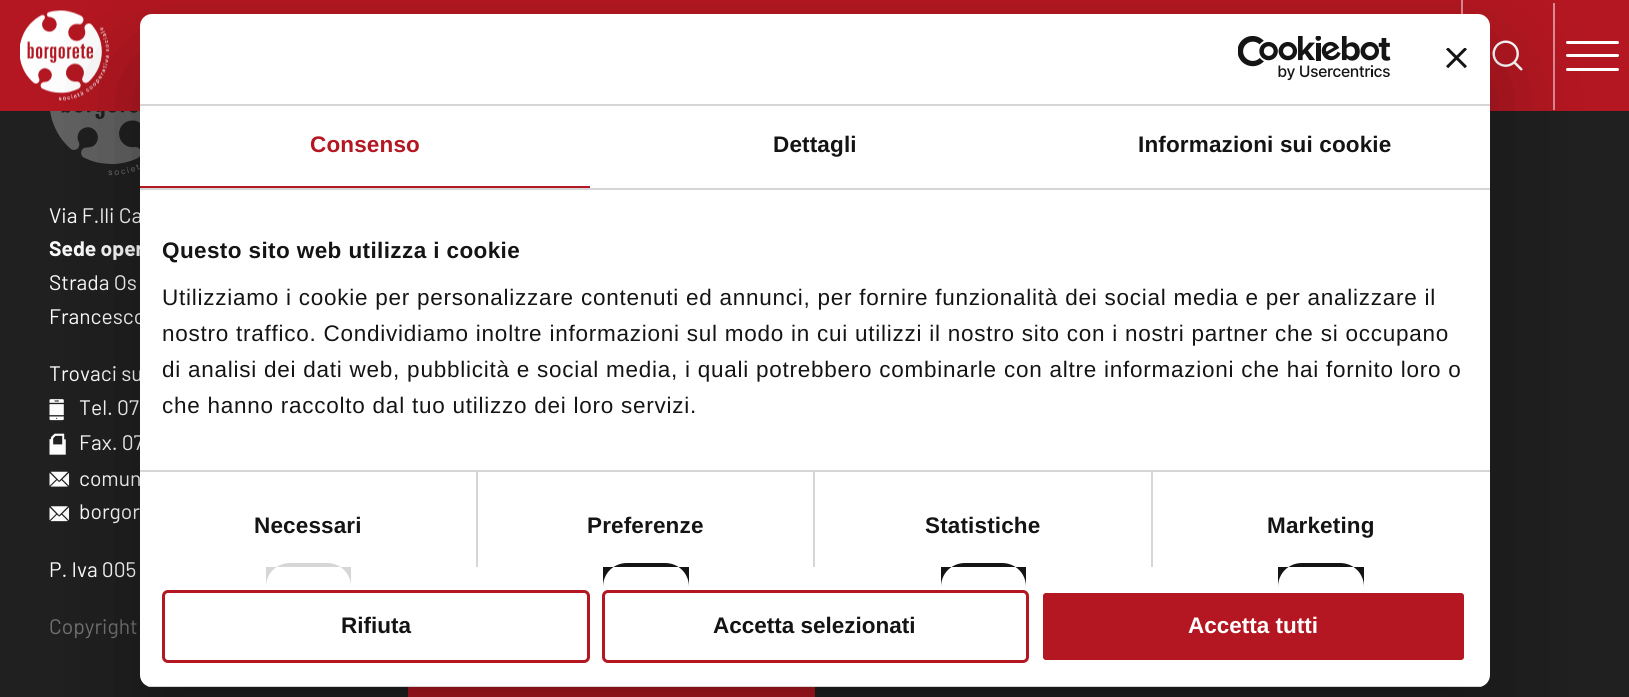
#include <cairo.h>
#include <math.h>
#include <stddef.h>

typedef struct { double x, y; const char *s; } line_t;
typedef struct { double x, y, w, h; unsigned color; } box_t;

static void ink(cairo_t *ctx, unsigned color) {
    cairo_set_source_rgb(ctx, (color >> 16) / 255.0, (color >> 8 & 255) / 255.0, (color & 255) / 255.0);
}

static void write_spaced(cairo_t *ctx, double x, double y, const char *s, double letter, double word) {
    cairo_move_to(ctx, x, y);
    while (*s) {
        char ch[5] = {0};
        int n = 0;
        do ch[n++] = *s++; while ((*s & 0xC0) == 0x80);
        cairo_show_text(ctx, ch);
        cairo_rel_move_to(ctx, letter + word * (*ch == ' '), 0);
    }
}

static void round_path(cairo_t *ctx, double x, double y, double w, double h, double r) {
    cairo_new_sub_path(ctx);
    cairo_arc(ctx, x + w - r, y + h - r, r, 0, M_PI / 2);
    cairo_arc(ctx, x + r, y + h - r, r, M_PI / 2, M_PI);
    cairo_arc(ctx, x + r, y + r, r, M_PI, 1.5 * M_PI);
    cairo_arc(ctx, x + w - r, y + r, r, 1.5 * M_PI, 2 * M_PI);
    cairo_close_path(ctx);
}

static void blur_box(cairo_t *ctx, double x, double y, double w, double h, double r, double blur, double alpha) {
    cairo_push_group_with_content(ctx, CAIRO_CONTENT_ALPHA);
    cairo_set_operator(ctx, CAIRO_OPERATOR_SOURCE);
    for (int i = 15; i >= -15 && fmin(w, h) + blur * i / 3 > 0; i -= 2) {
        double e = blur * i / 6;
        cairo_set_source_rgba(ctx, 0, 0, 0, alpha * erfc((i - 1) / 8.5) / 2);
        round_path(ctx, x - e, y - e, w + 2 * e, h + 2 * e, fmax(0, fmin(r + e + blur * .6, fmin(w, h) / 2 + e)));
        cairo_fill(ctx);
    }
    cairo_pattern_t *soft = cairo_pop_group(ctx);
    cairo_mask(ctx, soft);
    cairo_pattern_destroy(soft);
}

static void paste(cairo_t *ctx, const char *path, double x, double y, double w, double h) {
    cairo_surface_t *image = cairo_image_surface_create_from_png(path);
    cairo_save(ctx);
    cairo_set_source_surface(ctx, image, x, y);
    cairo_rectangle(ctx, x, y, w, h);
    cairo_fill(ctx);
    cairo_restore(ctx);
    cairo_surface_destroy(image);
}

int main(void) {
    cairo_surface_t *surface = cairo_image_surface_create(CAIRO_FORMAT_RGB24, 1629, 697);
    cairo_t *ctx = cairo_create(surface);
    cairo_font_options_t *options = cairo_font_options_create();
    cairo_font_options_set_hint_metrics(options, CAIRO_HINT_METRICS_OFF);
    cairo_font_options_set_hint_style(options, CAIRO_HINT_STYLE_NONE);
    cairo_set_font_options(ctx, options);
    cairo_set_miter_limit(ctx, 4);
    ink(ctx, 0x202020);
    cairo_paint(ctx);
    ink(ctx, 0xB41721);
    cairo_rectangle(ctx, 0, 0, 1629, 111);
    cairo_fill(ctx);
    paste(ctx, "media/1.png", 20, 10, 90, 91);
    ink(ctx, 0xDA8B90);
    cairo_rectangle(ctx, 1461, 0, 2, 14);
    cairo_fill(ctx);
    paste(ctx, "media/2.png", 1492, 40, 31, 31);
    cairo_rectangle(ctx, 1553, 3, 2, 107);
    cairo_fill(ctx);
    ink(ctx, 0xFFFFFF);
    round_path(ctx, 1566, 41, 53, 3, 1.5);
    cairo_fill(ctx);
    round_path(ctx, 1566, 54, 53, 3, 1.5);
    cairo_fill(ctx);
    round_path(ctx, 1566, 68, 53, 3, 1.5);
    cairo_fill(ctx);
    paste(ctx, "media/3.png", 50, 111, 90, 65);
    cairo_select_font_face(ctx, "Barlow", CAIRO_FONT_SLANT_NORMAL, CAIRO_FONT_WEIGHT_NORMAL);
    cairo_set_font_size(ctx, 21);
    cairo_move_to(ctx, 49, 223);
    cairo_show_text(ctx, "Via F.lli Ca");
    cairo_select_font_face(ctx, "Barlow", CAIRO_FONT_SLANT_NORMAL, CAIRO_FONT_WEIGHT_BOLD);
    cairo_move_to(ctx, 49, 256);
    cairo_show_text(ctx, "Sede oper");
    cairo_select_font_face(ctx, "Barlow", CAIRO_FONT_SLANT_NORMAL, CAIRO_FONT_WEIGHT_NORMAL);
    {
        static const line_t items[] = {
            {49, 290, "Strada Os"},
            {49, 324, "Francesco"},
            {49, 381, "Trovaci su"},
        };
        for (size_t i = 0; i < sizeof items / sizeof *items; i++) {
            cairo_move_to(ctx, items[i].x, items[i].y);
            cairo_show_text(ctx, items[i].s);
        }
    }
    paste(ctx, "media/4.png", 49, 399, 15, 22);
    cairo_move_to(ctx, 79, 415);
    cairo_show_text(ctx, "Tel. 07");
    paste(ctx, "media/5.png", 49, 433, 17, 22);
    cairo_move_to(ctx, 79, 450);
    cairo_show_text(ctx, "Fax. 07");
    paste(ctx, "media/6.png", 49, 471, 21, 16);
    cairo_move_to(ctx, 79, 486);
    cairo_show_text(ctx, "comun");
    paste(ctx, "media/7.png", 49, 506, 21, 16);
    cairo_move_to(ctx, 79, 519);
    cairo_show_text(ctx, "borgor");
    cairo_move_to(ctx, 49, 577);
    cairo_show_text(ctx, "P. Iva 005");
    ink(ctx, 0x737373);
    cairo_move_to(ctx, 49, 634);
    cairo_show_text(ctx, "Copyright");
    ink(ctx, 0xB41721);
    cairo_rectangle(ctx, 408, 687, 407, 10);
    cairo_fill(ctx);
    ink(ctx, 0x000000);
    blur_box(ctx, 140, 62, 1350, 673, 12, 51, 0.3);
    ink(ctx, 0xFFFFFF);
    round_path(ctx, 140, 14, 1350, 673, 12);
    cairo_fill(ctx);
    ink(ctx, 0xD6D6D6);
    cairo_rectangle(ctx, 140, 104, 1350, 2);
    cairo_fill(ctx);
    paste(ctx, "media/8.png", 1238, 36, 153, 45);
    paste(ctx, "media/9.png", 1446, 48, 21, 21);
    cairo_rectangle(ctx, 140, 188, 1350, 2);
    cairo_fill(ctx);
    ink(ctx, 0xB41721);
    cairo_rectangle(ctx, 140, 186, 450, 2);
    cairo_fill(ctx);
    cairo_select_font_face(ctx, "Liberation Sans", CAIRO_FONT_SLANT_NORMAL, CAIRO_FONT_WEIGHT_BOLD);
    cairo_set_font_size(ctx, 22.5);
    write_spaced(ctx, 310, 152, "Consenso", 0.15, 0);
    ink(ctx, 0x141414);
    write_spaced(ctx, 773, 152, "Dettagli", 0.15, 0);
    write_spaced(ctx, 1138, 152, "Informazioni sui cookie", 0.15, 0);
    {
        static const box_t items[] = {
            {476, 471, 2, 96, 0xD6D6D6},
            {813, 471, 2, 96, 0xD6D6D6},
            {1151, 471, 2, 96, 0xD6D6D6},
            {140, 470, 1350, 2, 0xD6D6D6},
        };
        for (size_t i = 0; i < sizeof items / sizeof *items; i++) {
            ink(ctx, items[i].color);
            cairo_rectangle(ctx, items[i].x, items[i].y, items[i].w, items[i].h);
            cairo_fill(ctx);
        }
    }
    ink(ctx, 0x141414);
    write_spaced(ctx, 162, 258, "Questo sito web utilizza i cookie", 0.4, 0);
    cairo_select_font_face(ctx, "Liberation Sans", CAIRO_FONT_SLANT_NORMAL, CAIRO_FONT_WEIGHT_NORMAL);
    {
        static const line_t items[] = {
            {162, 305, "Utilizziamo i cookie per personalizzare contenuti ed annunci, per fornire funzionalità dei social media e per analizzare il"},
            {162, 341, "nostro traffico. Condividiamo inoltre informazioni sul modo in cui utilizzi il nostro sito con i nostri partner che si occupano"},
            {162, 377, "di analisi dei dati web, pubblicità e social media, i quali potrebbero combinarle con altre informazioni che hai fornito loro o"},
            {162, 413, "che hanno raccolto dal tuo utilizzo dei loro servizi."},
        };
        for (size_t i = 0; i < sizeof items / sizeof *items; i++) {
            write_spaced(ctx, items[i].x, items[i].y, items[i].s, 0.75, 0);
        }
    }
    cairo_select_font_face(ctx, "Liberation Sans", CAIRO_FONT_SLANT_NORMAL, CAIRO_FONT_WEIGHT_BOLD);
    write_spaced(ctx, 254, 533, "Necessari", 0.15, 0);
    ink(ctx, 0xD6D6D6);
    cairo_new_path(ctx);
    cairo_move_to(ctx, 290, 563);
    cairo_line_to(ctx, 327, 563);
    cairo_curve_to(ctx, 340.5, 563, 351, 573.5, 351, 587);
    cairo_line_to(ctx, 351, 567);
    cairo_line_to(ctx, 266, 567);
    cairo_line_to(ctx, 266, 587);
    cairo_curve_to(ctx, 266, 573.5, 276.5, 563, 290, 563);
    cairo_close_path(ctx);
    cairo_fill(ctx);
    ink(ctx, 0x141414);
    write_spaced(ctx, 587, 533, "Preferenze", 0.15, 0);
    cairo_new_path(ctx);
    cairo_move_to(ctx, 627, 563);
    cairo_line_to(ctx, 665, 563);
    cairo_curve_to(ctx, 678.5, 563, 689, 573.5, 689, 587);
    cairo_line_to(ctx, 689, 567);
    cairo_line_to(ctx, 603, 567);
    cairo_line_to(ctx, 603, 587);
    cairo_curve_to(ctx, 603, 573.5, 613.5, 563, 627, 563);
    cairo_close_path(ctx);
    cairo_fill(ctx);
    write_spaced(ctx, 925, 533, "Statistiche", 0.15, 0);
    cairo_new_path(ctx);
    cairo_move_to(ctx, 965, 563);
    cairo_line_to(ctx, 1002, 563);
    cairo_curve_to(ctx, 1015.5, 563, 1026, 573.5, 1026, 587);
    cairo_line_to(ctx, 1026, 567);
    cairo_line_to(ctx, 941, 567);
    cairo_line_to(ctx, 941, 587);
    cairo_curve_to(ctx, 941, 573.5, 951.5, 563, 965, 563);
    cairo_close_path(ctx);
    cairo_fill(ctx);
    write_spaced(ctx, 1267, 533, "Marketing", 0.15, 0);
    cairo_new_path(ctx);
    cairo_move_to(ctx, 1302, 563);
    cairo_line_to(ctx, 1340, 563);
    cairo_curve_to(ctx, 1353.5, 563, 1364, 573.5, 1364, 587);
    cairo_line_to(ctx, 1364, 567);
    cairo_line_to(ctx, 1278, 567);
    cairo_line_to(ctx, 1278, 587);
    cairo_curve_to(ctx, 1278, 573.5, 1288.5, 563, 1302, 563);
    cairo_close_path(ctx);
    cairo_fill(ctx);
    cairo_save(ctx);
    round_path(ctx, 140, 14, 1350, 673, 12);
    cairo_clip(ctx);
    ink(ctx, 0xD6D6D6);
    cairo_rectangle(ctx, 140, 686, 1350, 1);
    cairo_fill(ctx);
    cairo_restore(ctx);
    round_path(ctx, 163.5, 591.5, 425, 70, 4.5);
    ink(ctx, 0xB41721);
    cairo_set_line_width(ctx, 3);
    cairo_stroke(ctx);
    ink(ctx, 0x141414);
    cairo_move_to(ctx, 341, 633);
    cairo_show_text(ctx, "Rifiuta");
    round_path(ctx, 603.5, 591.5, 424, 70, 4.5);
    ink(ctx, 0xB41721);
    cairo_stroke(ctx);
    ink(ctx, 0x141414);
    cairo_move_to(ctx, 713, 633);
    cairo_show_text(ctx, "Accetta selezionati");
    ink(ctx, 0xB41721);
    round_path(ctx, 1041.5, 591.5, 424, 70, 4.5);
    cairo_fill_preserve(ctx);
    ink(ctx, 0xFFFFFF);
    cairo_stroke(ctx);
    cairo_move_to(ctx, 1188, 633);
    cairo_show_text(ctx, "Accetta tutti");
    cairo_surface_write_to_png(surface, "image.png");
    cairo_font_options_destroy(options);
    cairo_destroy(ctx);
    cairo_surface_destroy(surface);
    return 0;
}
